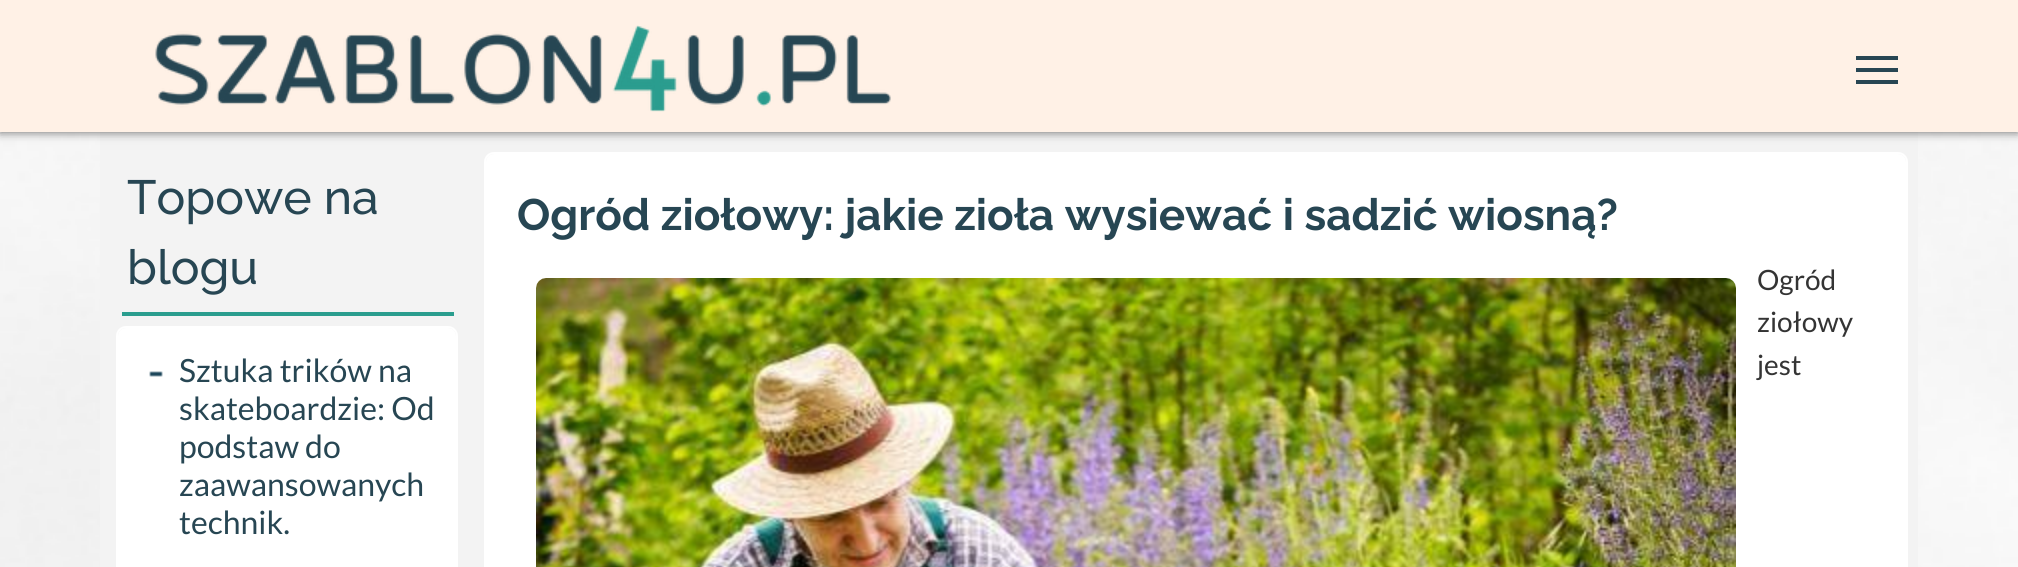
#include <cairo.h>
#include <math.h>
#include <stddef.h>

typedef struct { double x, y; const char *s; } line_t;
typedef struct { double x, y, w, h; unsigned color; } box_t;

static void ink(cairo_t *ctx, unsigned color) {
    cairo_set_source_rgb(ctx, (color >> 16) / 255.0, (color >> 8 & 255) / 255.0, (color & 255) / 255.0);
}

static void round_path(cairo_t *ctx, double x, double y, double w, double h, double r) {
    cairo_new_sub_path(ctx);
    cairo_arc(ctx, x + w - r, y + h - r, r, 0, M_PI / 2);
    cairo_arc(ctx, x + r, y + h - r, r, M_PI / 2, M_PI);
    cairo_arc(ctx, x + r, y + r, r, M_PI, 1.5 * M_PI);
    cairo_arc(ctx, x + w - r, y + r, r, 1.5 * M_PI, 2 * M_PI);
    cairo_close_path(ctx);
}

static void blur_box(cairo_t *ctx, double x, double y, double w, double h, double r, double blur, double alpha) {
    cairo_push_group_with_content(ctx, CAIRO_CONTENT_ALPHA);
    cairo_set_operator(ctx, CAIRO_OPERATOR_SOURCE);
    for (int i = 15; i >= -15 && fmin(w, h) + blur * i / 3 > 0; i -= 2) {
        double e = blur * i / 6;
        cairo_set_source_rgba(ctx, 0, 0, 0, alpha * erfc((i - 1) / 8.5) / 2);
        round_path(ctx, x - e, y - e, w + 2 * e, h + 2 * e, fmax(0, fmin(r + e + blur * .6, fmin(w, h) / 2 + e)));
        cairo_fill(ctx);
    }
    cairo_pattern_t *soft = cairo_pop_group(ctx);
    cairo_mask(ctx, soft);
    cairo_pattern_destroy(soft);
}

static void paste(cairo_t *ctx, const char *path, double x, double y, double w, double h) {
    cairo_surface_t *image = cairo_image_surface_create_from_png(path);
    cairo_save(ctx);
    cairo_set_source_surface(ctx, image, x, y);
    cairo_rectangle(ctx, x, y, w, h);
    cairo_fill(ctx);
    cairo_restore(ctx);
    cairo_surface_destroy(image);
}

int main(void) {
    cairo_surface_t *surface = cairo_image_surface_create(CAIRO_FORMAT_RGB24, 2018, 567);
    cairo_t *ctx = cairo_create(surface);
    cairo_font_options_t *options = cairo_font_options_create();
    cairo_font_options_set_hint_metrics(options, CAIRO_HINT_METRICS_OFF);
    cairo_font_options_set_hint_style(options, CAIRO_HINT_STYLE_NONE);
    cairo_set_font_options(ctx, options);
    cairo_set_miter_limit(ctx, 4);
    ink(ctx, 0xFFFFFF);
    cairo_paint(ctx);
    paste(ctx, "media/1.png", 0, 132, 2018, 435);
    ink(ctx, 0xF3F3F3);
    cairo_rectangle(ctx, 100, 132, 1818, 435);
    cairo_fill(ctx);
    ink(ctx, 0x000000);
    blur_box(ctx, 0, 0, 2018, 132, 0, 5, 0.59);
    ink(ctx, 0xFFF1E6);
    cairo_rectangle(ctx, 0, 0, 2018, 132);
    cairo_fill(ctx);
    paste(ctx, "media/2.png", 155, 25, 736, 87);
    {
        static const box_t items[] = {
            {1856, 56, 42, 4, 0x274653},
            {1856, 68, 42, 4, 0x274653},
            {1856, 80, 42, 4, 0x274653},
            {122, 312, 332, 4, 0x2A9D8E},
        };
        for (size_t i = 0; i < sizeof items / sizeof *items; i++) {
            ink(ctx, items[i].color);
            cairo_rectangle(ctx, items[i].x, items[i].y, items[i].w, items[i].h);
            cairo_fill(ctx);
        }
    }
    cairo_select_font_face(ctx, "Raleway Medium", CAIRO_FONT_SLANT_NORMAL, CAIRO_FONT_WEIGHT_NORMAL);
    cairo_set_font_size(ctx, 48);
    ink(ctx, 0x274653);
    cairo_move_to(ctx, 127, 214);
    cairo_show_text(ctx, "Topowe na");
    cairo_move_to(ctx, 127, 284);
    cairo_show_text(ctx, "blogu");
    ink(ctx, 0xFFFFFF);
    round_path(ctx, 118, 328, 338, 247, 8);
    cairo_fill(ctx);
    round_path(ctx, 117, 327, 340, 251, 9);
    cairo_stroke(ctx);
    paste(ctx, "media/3.png", 149, 371, 14, 6);
    cairo_select_font_face(ctx, "Lato", CAIRO_FONT_SLANT_NORMAL, CAIRO_FONT_WEIGHT_NORMAL);
    cairo_set_font_size(ctx, 32);
    ink(ctx, 0x274653);
    {
        static const line_t items[] = {
            {179, 382, "Sztuka trików na"},
            {179, 420, "skateboardzie: Od"},
            {179, 458, "podstaw do"},
            {179, 496, "zaawansowanych"},
            {179, 534, "technik."},
        };
        for (size_t i = 0; i < sizeof items / sizeof *items; i++) {
            cairo_move_to(ctx, items[i].x, items[i].y);
            cairo_show_text(ctx, items[i].s);
        }
    }
    ink(ctx, 0xFFFFFF);
    round_path(ctx, 486, 154, 1420, 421, 8);
    cairo_fill(ctx);
    round_path(ctx, 485, 153, 1422, 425, 9);
    cairo_stroke(ctx);
    cairo_select_font_face(ctx, "Raleway", CAIRO_FONT_SLANT_NORMAL, CAIRO_FONT_WEIGHT_BOLD);
    cairo_set_font_size(ctx, 44);
    ink(ctx, 0x274653);
    cairo_move_to(ctx, 517, 230);
    cairo_show_text(ctx, "Ogród ziołowy: jakie zioła wysiewać i sadzić wiosną?");
    paste(ctx, "media/4.png", 536, 278, 1200, 289);
    cairo_select_font_face(ctx, "Lato", CAIRO_FONT_SLANT_NORMAL, CAIRO_FONT_WEIGHT_NORMAL);
    cairo_set_font_size(ctx, 28);
    ink(ctx, 0x343434);
    {
        static const line_t items[] = {
            {1757, 290, "Ogród"},
            {1757, 332, "ziołowy"},
            {1757, 375, "jest"},
        };
        for (size_t i = 0; i < sizeof items / sizeof *items; i++) {
            cairo_move_to(ctx, items[i].x, items[i].y);
            cairo_show_text(ctx, items[i].s);
        }
    }
    cairo_surface_write_to_png(surface, "image.png");
    cairo_font_options_destroy(options);
    cairo_destroy(ctx);
    cairo_surface_destroy(surface);
    return 0;
}
